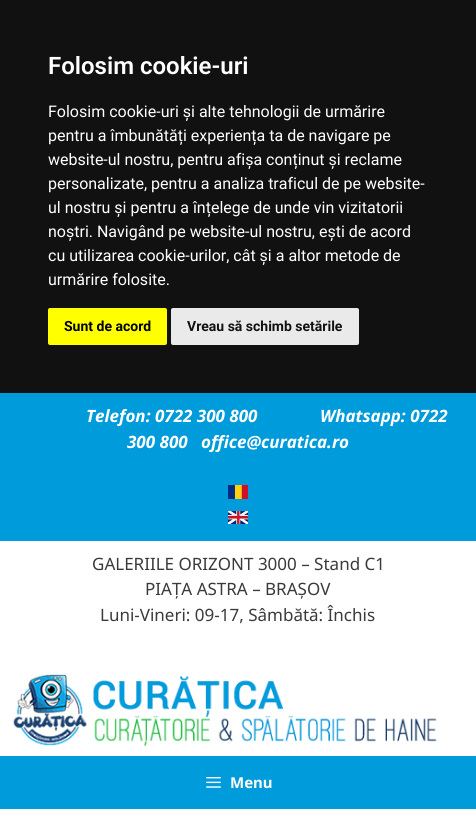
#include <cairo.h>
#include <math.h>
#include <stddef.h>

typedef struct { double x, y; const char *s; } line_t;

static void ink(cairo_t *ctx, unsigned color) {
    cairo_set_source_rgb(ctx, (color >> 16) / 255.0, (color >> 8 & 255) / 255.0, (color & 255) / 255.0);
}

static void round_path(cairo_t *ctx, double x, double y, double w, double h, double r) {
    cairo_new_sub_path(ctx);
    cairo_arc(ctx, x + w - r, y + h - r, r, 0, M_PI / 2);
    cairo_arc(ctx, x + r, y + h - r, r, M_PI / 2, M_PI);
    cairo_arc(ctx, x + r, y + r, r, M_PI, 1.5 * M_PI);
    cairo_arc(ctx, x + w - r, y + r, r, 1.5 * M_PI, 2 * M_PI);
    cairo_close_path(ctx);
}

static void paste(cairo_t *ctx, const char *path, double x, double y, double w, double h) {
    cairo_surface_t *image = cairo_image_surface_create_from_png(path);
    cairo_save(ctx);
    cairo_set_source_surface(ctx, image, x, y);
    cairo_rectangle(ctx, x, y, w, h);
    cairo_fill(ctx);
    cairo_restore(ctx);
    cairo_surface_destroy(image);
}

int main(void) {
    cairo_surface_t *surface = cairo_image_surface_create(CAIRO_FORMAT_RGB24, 476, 816);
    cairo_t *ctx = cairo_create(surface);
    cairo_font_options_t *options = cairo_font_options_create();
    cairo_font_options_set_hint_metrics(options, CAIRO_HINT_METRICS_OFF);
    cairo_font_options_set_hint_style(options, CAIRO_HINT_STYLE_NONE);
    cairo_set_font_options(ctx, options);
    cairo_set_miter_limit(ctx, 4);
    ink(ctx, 0xFFFFFF);
    cairo_paint(ctx);
    ink(ctx, 0x111111);
    cairo_rectangle(ctx, 0, 0, 476, 393);
    cairo_fill(ctx);
    cairo_select_font_face(ctx, "Roboto SemiBold", CAIRO_FONT_SLANT_NORMAL, CAIRO_FONT_WEIGHT_NORMAL);
    cairo_set_font_size(ctx, 24);
    ink(ctx, 0xFFFFFF);
    cairo_move_to(ctx, 48, 74);
    cairo_show_text(ctx, "Folosim cookie-uri");
    cairo_select_font_face(ctx, "Roboto", CAIRO_FONT_SLANT_NORMAL, CAIRO_FONT_WEIGHT_NORMAL);
    cairo_set_font_size(ctx, 16);
    {
        static const line_t items[] = {
            {48, 117, "Folosim cookie-uri și alte tehnologii de urmărire"},
            {48, 141, "pentru a îmbunătăți experiența ta de navigare pe"},
            {48, 165, "website-ul nostru, pentru afișa conținut și reclame"},
            {48, 189, "personalizate, pentru a analiza traficul de pe website-"},
            {48, 213, "ul nostru și pentru a înțelege de unde vin vizitatorii"},
            {48, 237, "noștri. Navigând pe website-ul nostru, ești de acord"},
            {48, 261, "cu utilizarea cookie-urilor, cât și a altor metode de"},
            {48, 285, "urmărire folosite."},
        };
        for (size_t i = 0; i < sizeof items / sizeof *items; i++) {
            cairo_move_to(ctx, items[i].x, items[i].y);
            cairo_show_text(ctx, items[i].s);
        }
    }
    ink(ctx, 0xFFFF00);
    round_path(ctx, 48, 308, 119, 37, 2);
    cairo_fill(ctx);
    cairo_select_font_face(ctx, "Roboto", CAIRO_FONT_SLANT_NORMAL, CAIRO_FONT_WEIGHT_BOLD);
    cairo_set_font_size(ctx, 14);
    ink(ctx, 0x000000);
    cairo_move_to(ctx, 64, 331);
    cairo_show_text(ctx, "Sunt de acord");
    ink(ctx, 0xEAEAEA);
    round_path(ctx, 171, 308, 188, 37, 2);
    cairo_fill(ctx);
    ink(ctx, 0x111111);
    cairo_move_to(ctx, 187, 331);
    cairo_show_text(ctx, "Vreau să schimb setările");
    ink(ctx, 0x009BDA);
    cairo_rectangle(ctx, 0, 393, 476, 148);
    cairo_fill(ctx);
    cairo_select_font_face(ctx, "Noto Sans", CAIRO_FONT_SLANT_ITALIC, CAIRO_FONT_WEIGHT_BOLD);
    cairo_set_font_size(ctx, 17);
    ink(ctx, 0xFFFFFF);
    {
        static const line_t items[] = {
            {86, 422, "Telefon: 0722 300 800"},
            {320, 422, "Whatsapp: 0722"},
            {127, 448, "300 800"},
            {201, 448, "office@curatica.ro"},
        };
        for (size_t i = 0; i < sizeof items / sizeof *items; i++) {
            cairo_move_to(ctx, items[i].x, items[i].y);
            cairo_show_text(ctx, items[i].s);
        }
    }
    paste(ctx, "media/1.png", 228, 485, 20, 14);
    paste(ctx, "media/2.png", 228, 511, 20, 13);
    cairo_select_font_face(ctx, "Noto Sans", CAIRO_FONT_SLANT_NORMAL, CAIRO_FONT_WEIGHT_NORMAL);
    ink(ctx, 0x3A3A3A);
    {
        static const line_t items[] = {
            {92, 570, "GALERIILE ORIZONT 3000 – Stand C1"},
            {145, 595, "PIAȚA ASTRA – BRAȘOV"},
            {100, 621, "Luni-Vineri: 09-17, Sâmbătă: Închis"},
        };
        for (size_t i = 0; i < sizeof items / sizeof *items; i++) {
            cairo_move_to(ctx, items[i].x, items[i].y);
            cairo_show_text(ctx, items[i].s);
        }
    }
    paste(ctx, "media/3.png", 13, 674, 424, 72);
    ink(ctx, 0x009BDA);
    cairo_rectangle(ctx, 0, 756, 476, 53);
    cairo_fill(ctx);
    paste(ctx, "media/4.png", 206, 777, 15, 11);
    cairo_select_font_face(ctx, "Noto Sans", CAIRO_FONT_SLANT_NORMAL, CAIRO_FONT_WEIGHT_BOLD);
    cairo_set_font_size(ctx, 15);
    ink(ctx, 0xFFFFFF);
    cairo_move_to(ctx, 230, 788);
    cairo_show_text(ctx, "Menu");
    cairo_surface_write_to_png(surface, "image.png");
    cairo_font_options_destroy(options);
    cairo_destroy(ctx);
    cairo_surface_destroy(surface);
    return 0;
}
